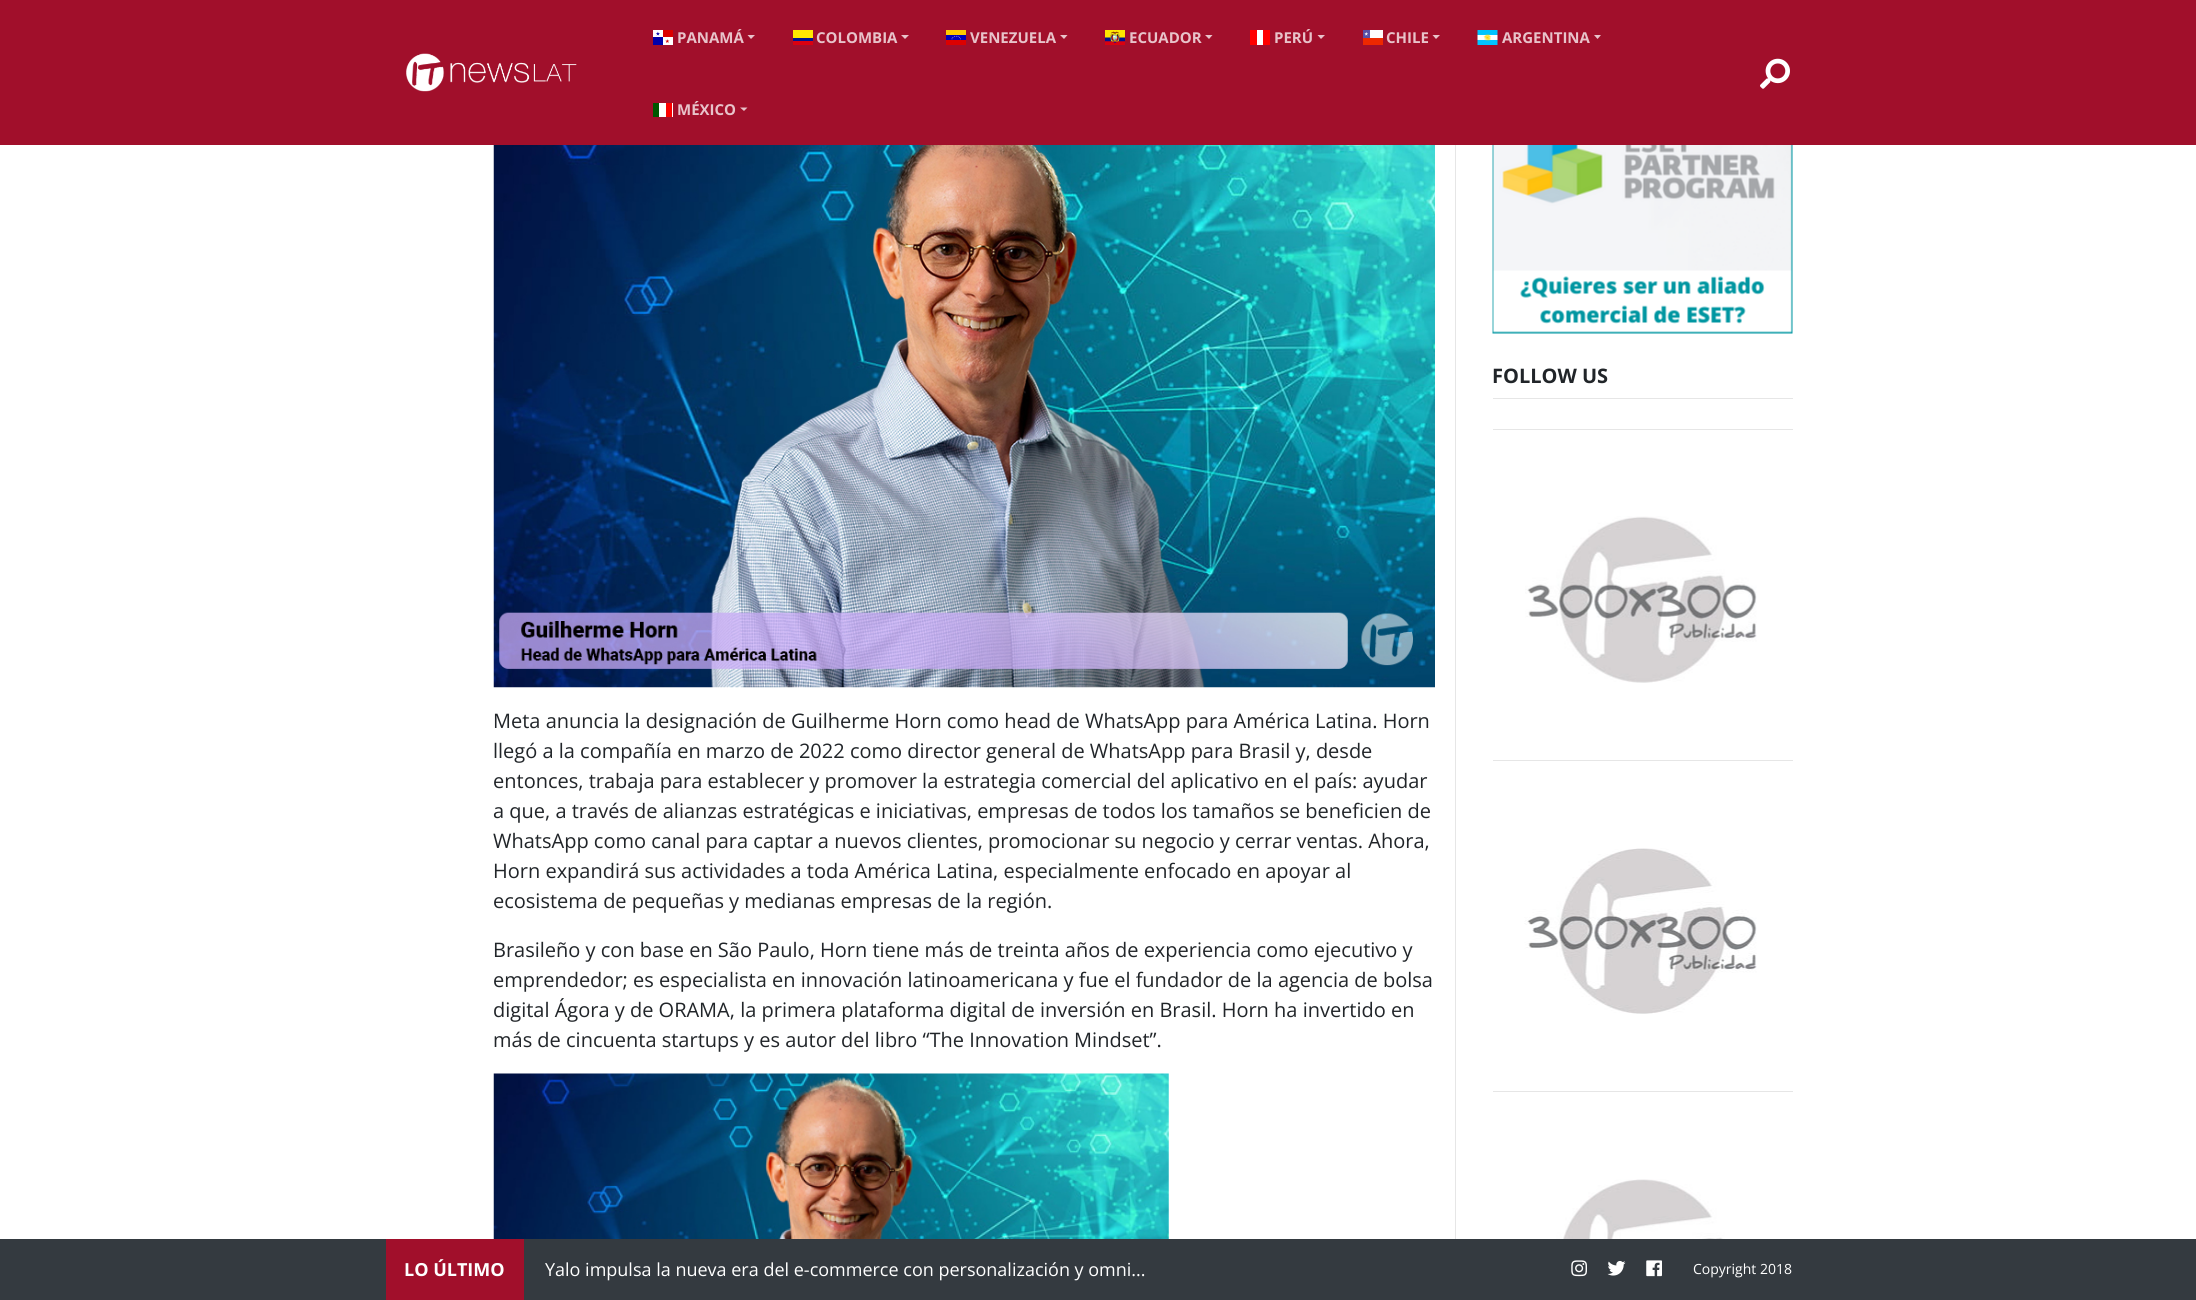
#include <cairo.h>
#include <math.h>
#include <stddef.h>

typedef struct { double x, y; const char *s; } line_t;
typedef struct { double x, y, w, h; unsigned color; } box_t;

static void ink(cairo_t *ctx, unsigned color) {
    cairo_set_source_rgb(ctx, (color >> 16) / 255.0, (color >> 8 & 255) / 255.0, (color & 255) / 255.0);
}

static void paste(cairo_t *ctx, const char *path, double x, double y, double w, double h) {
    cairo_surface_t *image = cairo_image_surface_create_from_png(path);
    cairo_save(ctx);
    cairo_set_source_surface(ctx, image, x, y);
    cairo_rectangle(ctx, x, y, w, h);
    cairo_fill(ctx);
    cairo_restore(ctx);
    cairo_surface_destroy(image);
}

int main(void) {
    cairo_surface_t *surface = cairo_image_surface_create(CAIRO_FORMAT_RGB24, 2196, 1300);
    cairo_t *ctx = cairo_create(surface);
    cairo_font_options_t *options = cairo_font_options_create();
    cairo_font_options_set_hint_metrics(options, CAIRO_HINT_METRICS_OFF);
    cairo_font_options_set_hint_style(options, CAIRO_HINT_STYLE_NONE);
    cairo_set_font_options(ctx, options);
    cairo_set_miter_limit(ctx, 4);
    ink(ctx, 0xFFFFFF);
    cairo_paint(ctx);
    ink(ctx, 0xA10F2B);
    cairo_rectangle(ctx, 0, 0, 2196, 145);
    cairo_fill(ctx);
    paste(ctx, "media/1.png", 406, 53, 171, 39);
    paste(ctx, "media/2.png", 653, 30, 20, 15);
    cairo_select_font_face(ctx, "Open Sans", CAIRO_FONT_SLANT_NORMAL, CAIRO_FONT_WEIGHT_BOLD);
    cairo_set_font_size(ctx, 15);
    ink(ctx, 0xE8C3CA);
    cairo_move_to(ctx, 677, 43);
    cairo_show_text(ctx, "PANAMÁ");
    cairo_new_path(ctx);
    cairo_move_to(ctx, 747.5, 35);
    cairo_line_to(ctx, 755, 35);
    cairo_line_to(ctx, 751, 39);
    cairo_close_path(ctx);
    cairo_fill(ctx);
    {
        static const box_t items[] = {
            {793, 30, 20, 8, 0xFFE800},
            {793, 38, 20, 3, 0x00148E},
            {793, 41, 20, 4, 0xDA0010},
        };
        for (size_t i = 0; i < sizeof items / sizeof *items; i++) {
            ink(ctx, items[i].color);
            cairo_rectangle(ctx, items[i].x, items[i].y, items[i].w, items[i].h);
            cairo_fill(ctx);
        }
    }
    ink(ctx, 0xE8C3CA);
    cairo_move_to(ctx, 816, 43);
    cairo_show_text(ctx, "COLOMBIA");
    cairo_new_path(ctx);
    cairo_move_to(ctx, 901, 35);
    cairo_line_to(ctx, 909, 35);
    cairo_line_to(ctx, 905, 39);
    cairo_close_path(ctx);
    cairo_fill(ctx);
    paste(ctx, "media/3.png", 946, 30, 20, 15);
    cairo_move_to(ctx, 970, 43);
    cairo_show_text(ctx, "VENEZUELA");
    cairo_new_path(ctx);
    cairo_move_to(ctx, 1060, 35);
    cairo_line_to(ctx, 1067.5, 35);
    cairo_line_to(ctx, 1064, 39);
    cairo_close_path(ctx);
    cairo_fill(ctx);
    paste(ctx, "media/4.png", 1105, 30, 20, 15);
    cairo_move_to(ctx, 1129, 43);
    cairo_show_text(ctx, "ECUADOR");
    cairo_new_path(ctx);
    cairo_move_to(ctx, 1205, 35);
    cairo_line_to(ctx, 1212.5, 35);
    cairo_line_to(ctx, 1209, 39);
    cairo_close_path(ctx);
    cairo_fill(ctx);
    {
        static const box_t items[] = {
            {1257, 30, 6, 15, 0xFFFFFF},
            {1250, 30, 7, 15, 0xFF0000},
            {1263, 30, 7, 15, 0xFF0000},
        };
        for (size_t i = 0; i < sizeof items / sizeof *items; i++) {
            ink(ctx, items[i].color);
            cairo_rectangle(ctx, items[i].x, items[i].y, items[i].w, items[i].h);
            cairo_fill(ctx);
        }
    }
    ink(ctx, 0xE8C3CA);
    cairo_move_to(ctx, 1274, 43);
    cairo_show_text(ctx, "PERÚ");
    cairo_new_path(ctx);
    cairo_move_to(ctx, 1317.5, 35);
    cairo_line_to(ctx, 1325, 35);
    cairo_line_to(ctx, 1321, 39);
    cairo_close_path(ctx);
    cairo_fill(ctx);
    paste(ctx, "media/5.png", 1363, 30, 20, 15);
    cairo_move_to(ctx, 1386, 43);
    cairo_show_text(ctx, "CHILE");
    cairo_new_path(ctx);
    cairo_move_to(ctx, 1432.5, 35);
    cairo_line_to(ctx, 1440, 35);
    cairo_line_to(ctx, 1436, 39);
    cairo_close_path(ctx);
    cairo_fill(ctx);
    paste(ctx, "media/6.png", 1477, 30, 21, 15);
    cairo_move_to(ctx, 1502, 43);
    cairo_show_text(ctx, "ARGENTINA");
    cairo_new_path(ctx);
    cairo_move_to(ctx, 1594, 35);
    cairo_line_to(ctx, 1601, 35);
    cairo_line_to(ctx, 1597.5, 39);
    cairo_close_path(ctx);
    cairo_fill(ctx);
    {
        static const box_t items[] = {
            {659, 103, 14, 14, 0xFFFFFF},
            {653, 103, 6, 14, 0x005700},
            {666, 103, 6, 14, 0xFC0000},
        };
        for (size_t i = 0; i < sizeof items / sizeof *items; i++) {
            ink(ctx, items[i].color);
            cairo_rectangle(ctx, items[i].x, items[i].y, items[i].w, items[i].h);
            cairo_fill(ctx);
        }
    }
    ink(ctx, 0xE8C3CA);
    cairo_move_to(ctx, 677, 115);
    cairo_show_text(ctx, "MÉXICO");
    cairo_new_path(ctx);
    cairo_move_to(ctx, 740, 107.5);
    cairo_line_to(ctx, 747.5, 107.5);
    cairo_line_to(ctx, 744, 111);
    cairo_close_path(ctx);
    cairo_fill(ctx);
    paste(ctx, "media/7.png", 1760, 58, 30, 31);
    ink(ctx, 0xE6E6E6);
    cairo_rectangle(ctx, 1455, 145, 1, 1094);
    cairo_fill(ctx);
    paste(ctx, "media/8.png", 1492, 145, 301, 189);
    cairo_set_font_size(ctx, 20);
    ink(ctx, 0x212529);
    cairo_move_to(ctx, 1492, 383);
    cairo_show_text(ctx, "FOLLOW US");
    ink(ctx, 0xE6E6E6);
    cairo_rectangle(ctx, 1493, 398, 300, 1);
    cairo_fill(ctx);
    cairo_rectangle(ctx, 1493, 429, 300, 1);
    cairo_fill(ctx);
    paste(ctx, "media/9.png", 1525, 516, 232, 167);
    cairo_rectangle(ctx, 1493, 760, 300, 1);
    cairo_fill(ctx);
    paste(ctx, "media/10.png", 1524, 848, 233, 166);
    cairo_rectangle(ctx, 1493, 1091, 300, 1);
    cairo_fill(ctx);
    paste(ctx, "media/11.png", 1525, 1179, 232, 60);
    paste(ctx, "media/12.png", 493, 145, 942, 543);
    cairo_select_font_face(ctx, "Open Sans", CAIRO_FONT_SLANT_NORMAL, CAIRO_FONT_WEIGHT_NORMAL);
    ink(ctx, 0x212529);
    {
        static const line_t items[] = {
            {493, 728, "Meta anuncia la designación de Guilherme Horn como head de WhatsApp para América Latina. Horn"},
            {493, 758, "llegó a la compañía en marzo de 2022 como director general de WhatsApp para Brasil y, desde"},
            {493, 788, "entonces, trabaja para establecer y promover la estrategia comercial del aplicativo en el país: ayudar"},
            {493, 818, "a que, a través de alianzas estratégicas e iniciativas, empresas de todos los tamaños se beneficien de"},
            {493, 848, "WhatsApp como canal para captar a nuevos clientes, promocionar su negocio y cerrar ventas. Ahora,"},
            {493, 878, "Horn expandirá sus actividades a toda América Latina, especialmente enfocado en apoyar al"},
            {493, 908, "ecosistema de pequeñas y medianas empresas de la región."},
            {493, 957, "Brasileño y con base en São Paulo, Horn tiene más de treinta años de experiencia como ejecutivo y"},
            {493, 987, "emprendedor; es especialista en innovación latinoamericana y fue el fundador de la agencia de bolsa"},
            {493, 1017, "digital Ágora y de ORAMA, la primera plataforma digital de inversión en Brasil. Horn ha invertido en"},
            {493, 1047, "más de cincuenta startups y es autor del libro “The Innovation Mindset”."},
        };
        for (size_t i = 0; i < sizeof items / sizeof *items; i++) {
            cairo_move_to(ctx, items[i].x, items[i].y);
            cairo_show_text(ctx, items[i].s);
        }
    }
    paste(ctx, "media/13.png", 493, 1073, 676, 166);
    ink(ctx, 0x343A40);
    cairo_rectangle(ctx, 0, 1239, 2196, 61);
    cairo_fill(ctx);
    ink(ctx, 0xA10F2B);
    cairo_rectangle(ctx, 386, 1239, 138, 61);
    cairo_fill(ctx);
    cairo_select_font_face(ctx, "Open Sans", CAIRO_FONT_SLANT_NORMAL, CAIRO_FONT_WEIGHT_BOLD);
    cairo_set_font_size(ctx, 18);
    ink(ctx, 0xFFFFFF);
    cairo_move_to(ctx, 404, 1276);
    cairo_show_text(ctx, "LO ÚLTIMO");
    cairo_select_font_face(ctx, "Open Sans", CAIRO_FONT_SLANT_NORMAL, CAIRO_FONT_WEIGHT_NORMAL);
    cairo_move_to(ctx, 545, 1276);
    cairo_show_text(ctx, "Yalo impulsa la nueva era del e-commerce con personalización y omni...");
    paste(ctx, "media/14.png", 1571, 1260, 16, 17);
    paste(ctx, "media/15.png", 1607, 1261, 19, 15);
    paste(ctx, "media/16.png", 1646, 1260, 16, 17);
    cairo_set_font_size(ctx, 14);
    cairo_move_to(ctx, 1693, 1274);
    cairo_show_text(ctx, "Copyright 2018");
    cairo_surface_write_to_png(surface, "image.png");
    cairo_font_options_destroy(options);
    cairo_destroy(ctx);
    cairo_surface_destroy(surface);
    return 0;
}
